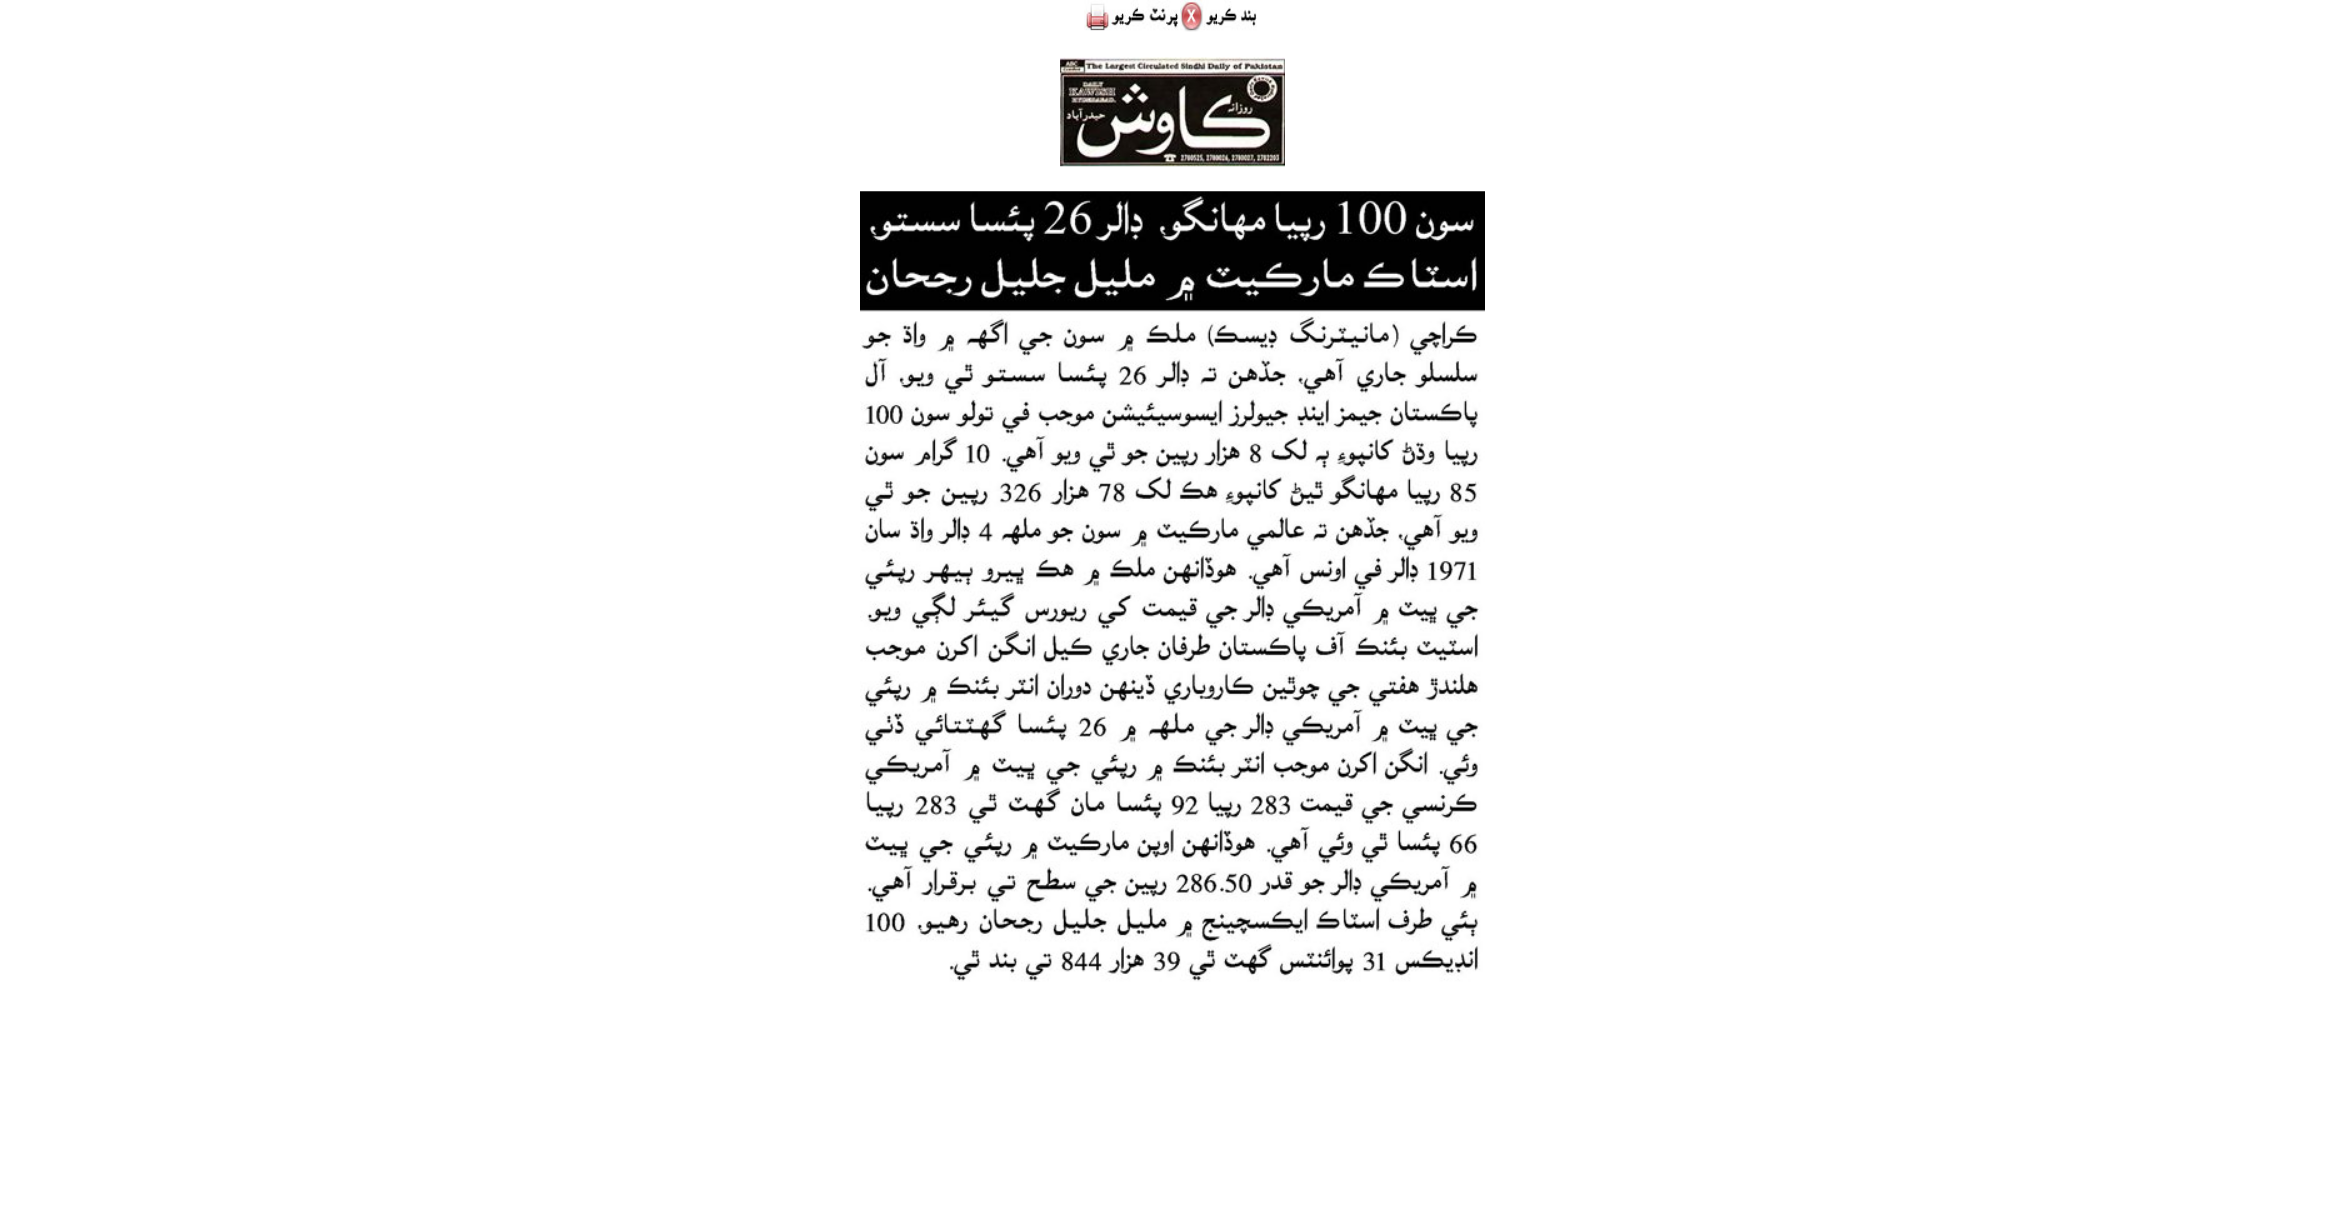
#include <cairo.h>
#include <math.h>
#include <stddef.h>


static void ink(cairo_t *ctx, unsigned color) {
    cairo_set_source_rgb(ctx, (color >> 16) / 255.0, (color >> 8 & 255) / 255.0, (color & 255) / 255.0);
}

static void paste(cairo_t *ctx, const char *path, double x, double y, double w, double h) {
    cairo_surface_t *image = cairo_image_surface_create_from_png(path);
    cairo_save(ctx);
    cairo_set_source_surface(ctx, image, x, y);
    cairo_rectangle(ctx, x, y, w, h);
    cairo_fill(ctx);
    cairo_restore(ctx);
    cairo_surface_destroy(image);
}

int main(void) {
    cairo_surface_t *surface = cairo_image_surface_create(CAIRO_FORMAT_RGB24, 2344, 1211);
    cairo_t *ctx = cairo_create(surface);
    cairo_font_options_t *options = cairo_font_options_create();
    cairo_font_options_set_hint_metrics(options, CAIRO_HINT_METRICS_OFF);
    cairo_font_options_set_hint_style(options, CAIRO_HINT_STYLE_NONE);
    cairo_set_font_options(ctx, options);
    cairo_set_miter_limit(ctx, 4);
    ink(ctx, 0xFFFFFF);
    cairo_paint(ctx);
    paste(ctx, "media/1.png", 1084, 0, 95, 31);
    paste(ctx, "media/2.png", 1180, 0, 77, 32);
    paste(ctx, "media/3.png", 1060, 57, 225, 110);
    paste(ctx, "media/4.png", 860, 191, 625, 791);
    cairo_surface_write_to_png(surface, "image.png");
    cairo_font_options_destroy(options);
    cairo_destroy(ctx);
    cairo_surface_destroy(surface);
    return 0;
}
